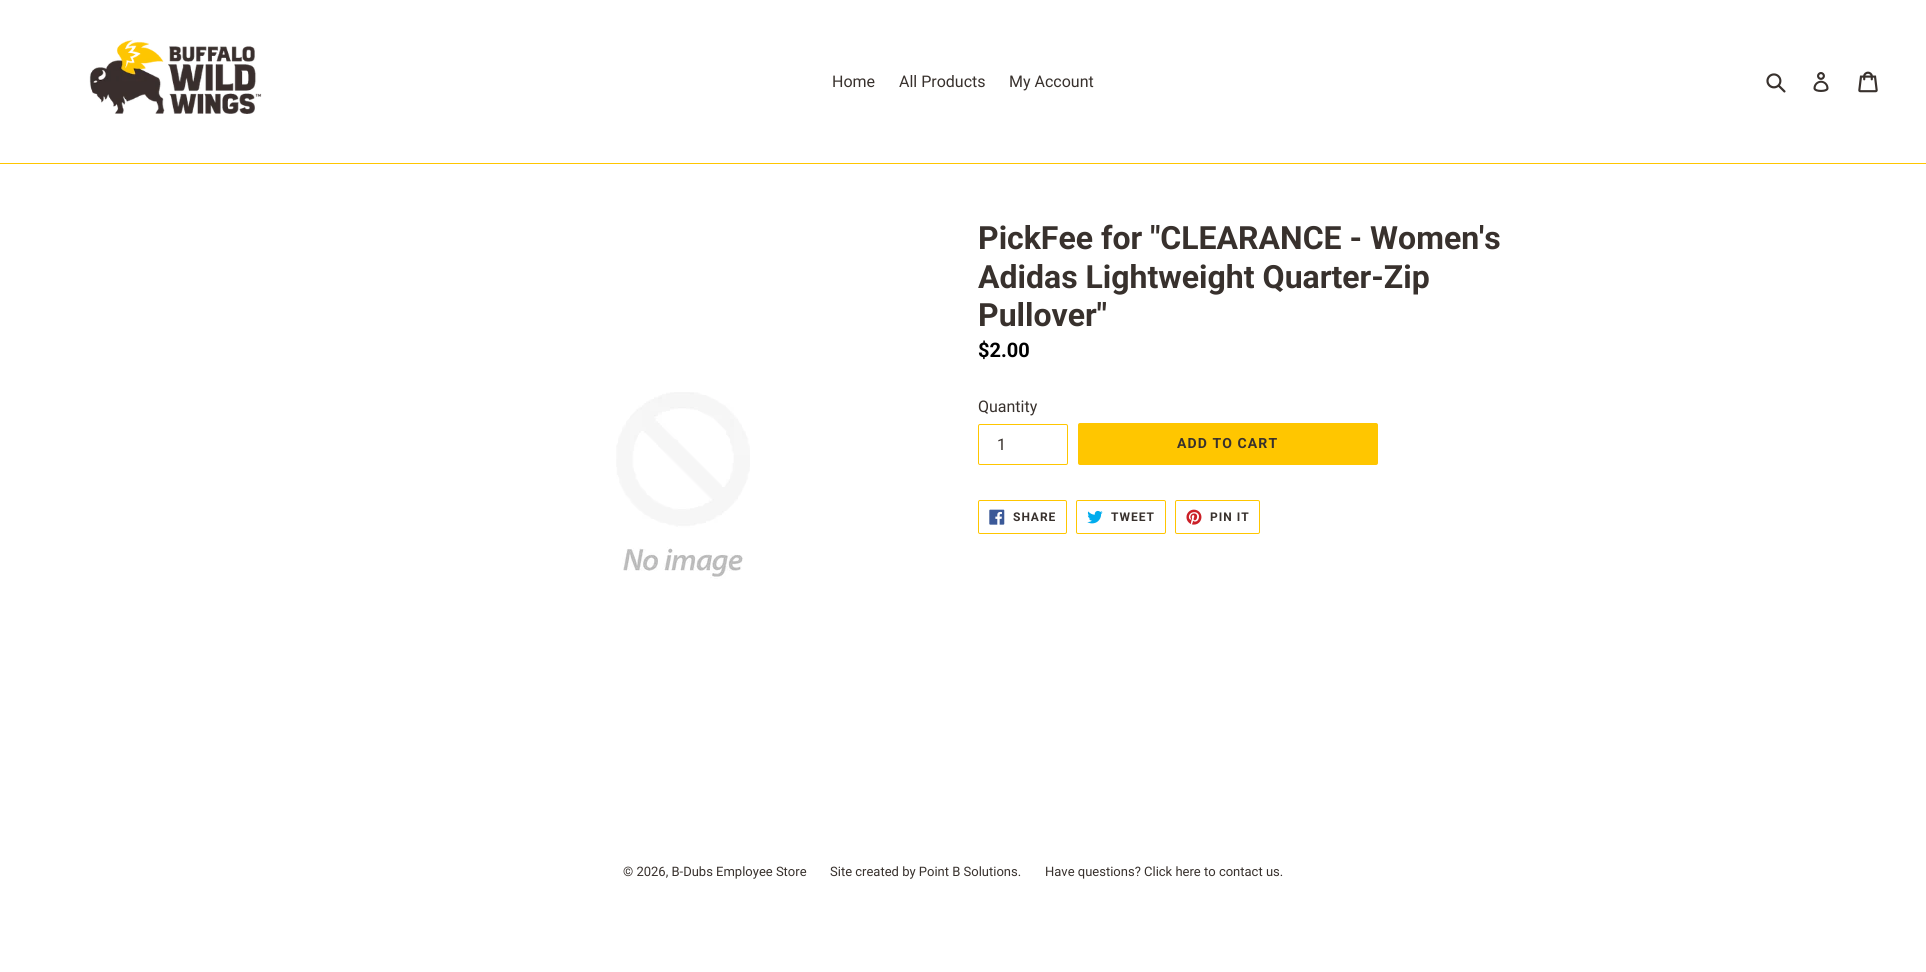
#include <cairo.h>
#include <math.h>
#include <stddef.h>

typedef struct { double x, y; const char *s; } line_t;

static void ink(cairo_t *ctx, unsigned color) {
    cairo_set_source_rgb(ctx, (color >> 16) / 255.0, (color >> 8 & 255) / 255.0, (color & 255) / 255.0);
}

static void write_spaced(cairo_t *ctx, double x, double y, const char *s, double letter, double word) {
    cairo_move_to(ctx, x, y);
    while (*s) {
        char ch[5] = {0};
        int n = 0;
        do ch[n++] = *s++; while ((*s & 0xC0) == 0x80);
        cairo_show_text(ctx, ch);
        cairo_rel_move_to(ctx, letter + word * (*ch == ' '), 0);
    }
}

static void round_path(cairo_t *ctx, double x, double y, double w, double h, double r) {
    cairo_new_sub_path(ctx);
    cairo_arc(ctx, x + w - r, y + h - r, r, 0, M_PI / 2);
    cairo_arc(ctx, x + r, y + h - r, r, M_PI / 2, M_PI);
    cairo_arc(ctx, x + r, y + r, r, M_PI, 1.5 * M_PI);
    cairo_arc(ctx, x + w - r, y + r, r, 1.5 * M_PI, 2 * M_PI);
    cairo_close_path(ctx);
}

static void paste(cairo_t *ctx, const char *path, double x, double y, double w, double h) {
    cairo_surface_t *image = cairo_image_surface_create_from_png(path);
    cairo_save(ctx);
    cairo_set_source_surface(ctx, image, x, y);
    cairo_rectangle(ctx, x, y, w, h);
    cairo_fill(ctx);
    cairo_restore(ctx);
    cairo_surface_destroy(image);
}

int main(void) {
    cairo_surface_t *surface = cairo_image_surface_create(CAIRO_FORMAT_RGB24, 1926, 972);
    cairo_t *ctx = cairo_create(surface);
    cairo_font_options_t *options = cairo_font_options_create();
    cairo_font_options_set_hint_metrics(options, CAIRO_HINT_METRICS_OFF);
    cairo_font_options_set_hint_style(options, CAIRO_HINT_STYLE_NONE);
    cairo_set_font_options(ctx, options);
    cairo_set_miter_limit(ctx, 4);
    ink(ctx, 0xFFFFFF);
    cairo_paint(ctx);
    ink(ctx, 0xFFC600);
    cairo_rectangle(ctx, 0, 163, 1926, 1);
    cairo_fill(ctx);
    paste(ctx, "media/1.png", 89, 39, 173, 75);
    cairo_select_font_face(ctx, "Roboto", CAIRO_FONT_SLANT_NORMAL, CAIRO_FONT_WEIGHT_NORMAL);
    cairo_set_font_size(ctx, 16);
    ink(ctx, 0x38312D);
    {
        static const line_t items[] = {
            {832, 87, "Home"},
            {899, 87, "All Products"},
            {1009, 87, "My Account"},
        };
        for (size_t i = 0; i < sizeof items / sizeof *items; i++) {
            cairo_move_to(ctx, items[i].x, items[i].y);
            cairo_show_text(ctx, items[i].s);
        }
    }
    paste(ctx, "media/2.png", 1766, 73, 20, 20);
    paste(ctx, "media/3.png", 1813, 72, 16, 20);
    paste(ctx, "media/4.png", 1858, 71, 20, 22);
    paste(ctx, "media/5.png", 616, 392, 134, 187);
    cairo_select_font_face(ctx, "Roboto", CAIRO_FONT_SLANT_NORMAL, CAIRO_FONT_WEIGHT_BOLD);
    cairo_set_font_size(ctx, 32);
    {
        static const line_t items[] = {
            {978, 249, "PickFee for \"CLEARANCE - Women's"},
            {978, 288, "Adidas Lightweight Quarter-Zip"},
            {978, 326, "Pullover\""},
        };
        for (size_t i = 0; i < sizeof items / sizeof *items; i++) {
            cairo_move_to(ctx, items[i].x, items[i].y);
            cairo_show_text(ctx, items[i].s);
        }
    }
    cairo_set_font_size(ctx, 20);
    ink(ctx, 0x000000);
    cairo_move_to(ctx, 978, 357);
    cairo_show_text(ctx, "$2.00");
    cairo_select_font_face(ctx, "Roboto", CAIRO_FONT_SLANT_NORMAL, CAIRO_FONT_WEIGHT_NORMAL);
    cairo_set_font_size(ctx, 16);
    ink(ctx, 0x38312D);
    cairo_move_to(ctx, 978, 412);
    cairo_show_text(ctx, "Quantity");
    round_path(ctx, 978.5, 424.5, 89, 40, 1.5);
    ink(ctx, 0xFFC600);
    cairo_set_line_width(ctx, 1);
    cairo_stroke(ctx);
    ink(ctx, 0x38312D);
    cairo_move_to(ctx, 997, 450);
    cairo_show_text(ctx, "1");
    ink(ctx, 0xFFC600);
    round_path(ctx, 1078, 423, 300, 42, 2);
    cairo_fill(ctx);
    cairo_select_font_face(ctx, "Roboto", CAIRO_FONT_SLANT_NORMAL, CAIRO_FONT_WEIGHT_BOLD);
    cairo_set_font_size(ctx, 14);
    ink(ctx, 0x38312D);
    write_spaced(ctx, 1177, 448, "ADD TO CART", 1.1, 0);
    round_path(ctx, 978.5, 500.5, 88, 33, 1.5);
    ink(ctx, 0xFFC600);
    cairo_stroke(ctx);
    paste(ctx, "media/6.png", 989, 509, 16, 16);
    cairo_set_font_size(ctx, 12);
    ink(ctx, 0x38312D);
    write_spaced(ctx, 1013, 521, "SHARE", 1, 0);
    round_path(ctx, 1076.5, 500.5, 89, 33, 1.5);
    ink(ctx, 0xFFC600);
    cairo_stroke(ctx);
    paste(ctx, "media/7.png", 1087, 510, 16, 14);
    ink(ctx, 0x38312D);
    write_spaced(ctx, 1111, 521, "TWEET", 1, 0);
    round_path(ctx, 1175.5, 500.5, 84, 33, 1.5);
    ink(ctx, 0xFFC600);
    cairo_stroke(ctx);
    paste(ctx, "media/8.png", 1186, 509, 16, 16);
    ink(ctx, 0x38312D);
    write_spaced(ctx, 1210, 521, "PIN IT", 1, 0);
    cairo_select_font_face(ctx, "Roboto", CAIRO_FONT_SLANT_NORMAL, CAIRO_FONT_WEIGHT_NORMAL);
    cairo_set_font_size(ctx, 13);
    {
        static const line_t items[] = {
            {623, 876, "© 2026, B-Dubs Employee Store"},
            {830, 876, "Site created by Point B Solutions."},
            {1045, 876, "Have questions? Click here to contact us."},
        };
        for (size_t i = 0; i < sizeof items / sizeof *items; i++) {
            cairo_move_to(ctx, items[i].x, items[i].y);
            cairo_show_text(ctx, items[i].s);
        }
    }
    cairo_surface_write_to_png(surface, "image.png");
    cairo_font_options_destroy(options);
    cairo_destroy(ctx);
    cairo_surface_destroy(surface);
    return 0;
}
